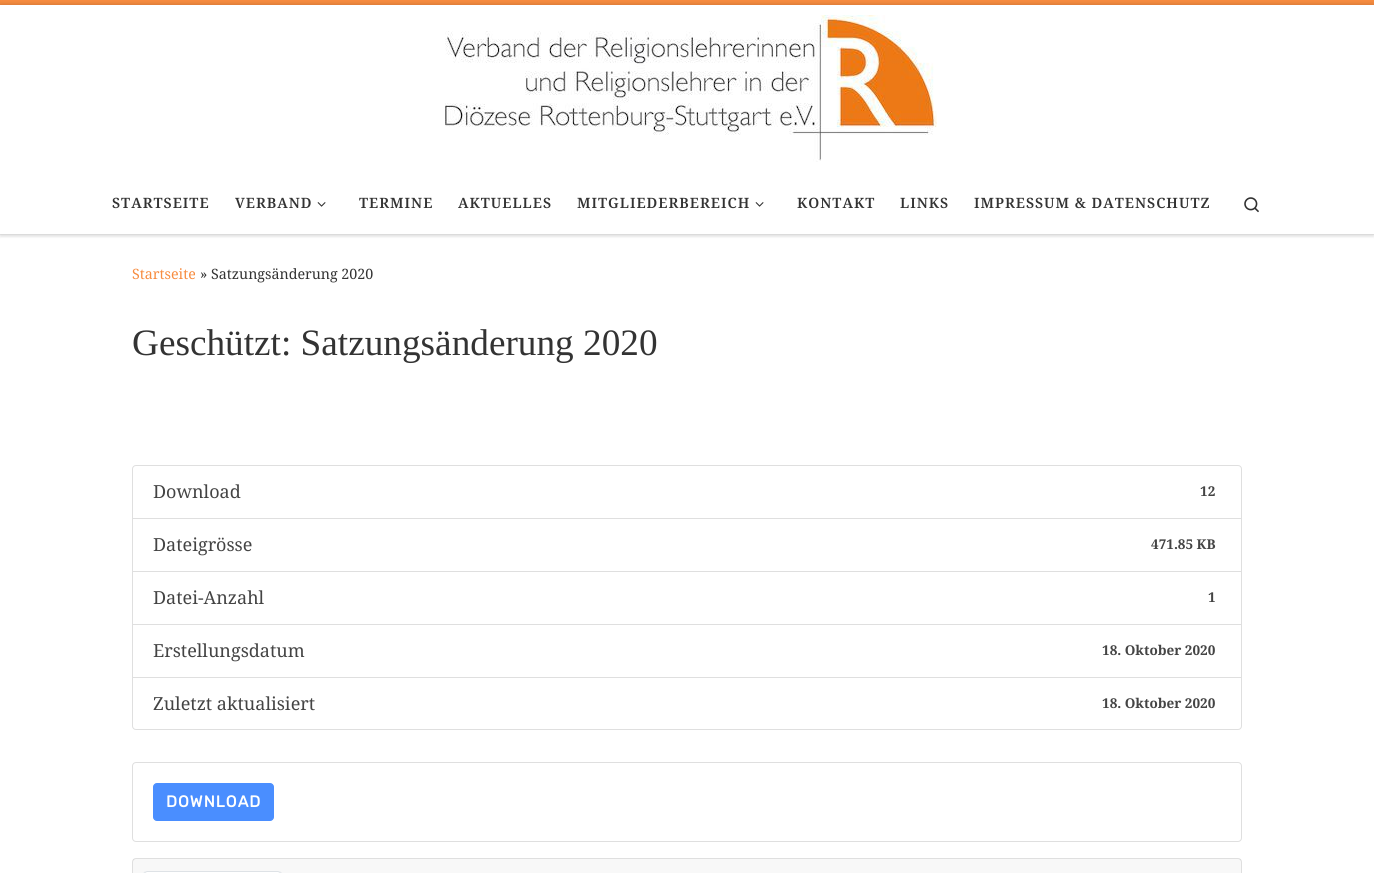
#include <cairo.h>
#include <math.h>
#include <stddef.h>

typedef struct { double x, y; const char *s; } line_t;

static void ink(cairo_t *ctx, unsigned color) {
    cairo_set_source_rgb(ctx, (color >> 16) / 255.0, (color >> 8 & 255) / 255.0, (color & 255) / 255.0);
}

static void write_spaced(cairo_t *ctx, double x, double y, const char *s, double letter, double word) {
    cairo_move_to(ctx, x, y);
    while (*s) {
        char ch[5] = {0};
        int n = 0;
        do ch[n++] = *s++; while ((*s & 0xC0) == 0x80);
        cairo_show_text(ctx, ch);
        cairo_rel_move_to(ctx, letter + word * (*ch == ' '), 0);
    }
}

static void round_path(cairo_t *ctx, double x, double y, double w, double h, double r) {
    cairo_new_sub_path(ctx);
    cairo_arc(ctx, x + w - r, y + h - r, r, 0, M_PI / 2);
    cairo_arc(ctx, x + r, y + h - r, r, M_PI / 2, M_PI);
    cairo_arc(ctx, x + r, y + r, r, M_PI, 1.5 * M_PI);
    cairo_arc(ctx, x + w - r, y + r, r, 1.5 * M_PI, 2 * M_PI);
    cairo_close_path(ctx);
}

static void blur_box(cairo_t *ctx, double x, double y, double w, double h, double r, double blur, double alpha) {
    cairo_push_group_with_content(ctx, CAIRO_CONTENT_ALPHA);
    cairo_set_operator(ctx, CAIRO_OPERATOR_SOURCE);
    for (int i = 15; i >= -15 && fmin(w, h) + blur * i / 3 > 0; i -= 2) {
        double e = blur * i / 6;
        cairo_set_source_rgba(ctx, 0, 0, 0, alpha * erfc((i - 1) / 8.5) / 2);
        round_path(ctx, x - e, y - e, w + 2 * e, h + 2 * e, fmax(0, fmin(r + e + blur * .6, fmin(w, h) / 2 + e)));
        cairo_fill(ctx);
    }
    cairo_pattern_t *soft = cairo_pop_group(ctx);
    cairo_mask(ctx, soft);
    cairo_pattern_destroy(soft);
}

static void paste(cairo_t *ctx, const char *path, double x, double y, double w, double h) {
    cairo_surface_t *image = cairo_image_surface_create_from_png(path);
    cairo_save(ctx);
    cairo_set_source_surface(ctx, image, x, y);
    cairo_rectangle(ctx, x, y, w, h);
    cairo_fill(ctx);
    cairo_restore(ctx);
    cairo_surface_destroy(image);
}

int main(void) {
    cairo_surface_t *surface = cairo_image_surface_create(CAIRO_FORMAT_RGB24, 1374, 873);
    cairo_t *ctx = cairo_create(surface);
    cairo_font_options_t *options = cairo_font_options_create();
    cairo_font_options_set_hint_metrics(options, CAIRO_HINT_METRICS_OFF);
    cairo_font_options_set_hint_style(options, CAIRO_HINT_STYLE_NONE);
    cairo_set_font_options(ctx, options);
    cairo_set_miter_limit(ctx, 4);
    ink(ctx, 0xFFFFFF);
    cairo_paint(ctx);
    cairo_save(ctx);
    cairo_rectangle(ctx, 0, 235, 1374, 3);
    cairo_clip(ctx);
    ink(ctx, 0x666666);
    blur_box(ctx, 0, 2, 1374, 235, 0, 1, 0.08);
    cairo_restore(ctx);
    ink(ctx, 0xF78C40);
    cairo_rectangle(ctx, 0, 0, 1374, 5);
    cairo_fill(ctx);
    ink(ctx, 0xEFEFEF);
    cairo_rectangle(ctx, 0, 234, 1374, 1);
    cairo_fill(ctx);
    cairo_save(ctx);
    cairo_set_fill_rule(ctx, CAIRO_FILL_RULE_EVEN_ODD);
    cairo_new_path(ctx);
    cairo_move_to(ctx, 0, 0);
    cairo_line_to(ctx, 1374, 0);
    cairo_line_to(ctx, 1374, 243);
    cairo_line_to(ctx, 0, 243);
    cairo_close_path(ctx);
    cairo_move_to(ctx, 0, 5);
    cairo_line_to(ctx, 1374, 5);
    cairo_line_to(ctx, 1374, 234);
    cairo_line_to(ctx, 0, 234);
    cairo_close_path(ctx);
    cairo_clip(ctx);
    ink(ctx, 0x000000);
    blur_box(ctx, 0, 5, 1374, 229, 0, 2.5, 0.2);
    cairo_restore(ctx);
    paste(ctx, "media/1.png", 445, 15, 492, 147);
    cairo_select_font_face(ctx, "Noto Serif SemiBold", CAIRO_FONT_SLANT_NORMAL, CAIRO_FONT_WEIGHT_NORMAL);
    cairo_set_font_size(ctx, 14.25);
    ink(ctx, 0x333333);
    write_spaced(ctx, 112, 208, "STARTSEITE", 1, 0);
    write_spaced(ctx, 235, 208, "VERBAND", 1, 0);
    paste(ctx, "media/2.png", 317, 202, 9, 5);
    {
        static const line_t items[] = {
            {359, 208, "TERMINE"},
            {458, 208, "AKTUELLES"},
            {577, 208, "MITGLIEDERBEREICH"},
        };
        for (size_t i = 0; i < sizeof items / sizeof *items; i++) {
            write_spaced(ctx, items[i].x, items[i].y, items[i].s, 1, 0);
        }
    }
    paste(ctx, "media/2.png", 755, 202, 9, 5);
    {
        static const line_t items[] = {
            {797, 208, "KONTAKT"},
            {900, 208, "LINKS"},
            {974, 208, "IMPRESSUM & DATENSCHUTZ"},
        };
        for (size_t i = 0; i < sizeof items / sizeof *items; i++) {
            write_spaced(ctx, items[i].x, items[i].y, items[i].s, 1, 0);
        }
    }
    paste(ctx, "media/3.png", 1244, 197, 15, 16);
    cairo_select_font_face(ctx, "Noto Serif", CAIRO_FONT_SLANT_NORMAL, CAIRO_FONT_WEIGHT_NORMAL);
    ink(ctx, 0xF78C40);
    cairo_move_to(ctx, 132, 279);
    cairo_show_text(ctx, "Startseite");
    ink(ctx, 0x333333);
    cairo_move_to(ctx, 200, 279);
    cairo_show_text(ctx, "» Satzungsänderung 2020");
    cairo_select_font_face(ctx, "Liberation Serif", CAIRO_FONT_SLANT_NORMAL, CAIRO_FONT_WEIGHT_NORMAL);
    cairo_set_font_size(ctx, 37.25);
    cairo_move_to(ctx, 132, 355);
    cairo_show_text(ctx, "Geschützt: Satzungsänderung 2020");
    cairo_new_path(ctx);
    cairo_move_to(ctx, 136, 465.5);
    cairo_line_to(ctx, 1238, 465.5);
    cairo_curve_to(ctx, 1240, 465.5, 1241.5, 467, 1241.5, 469);
    cairo_line_to(ctx, 1241.5, 518.5);
    cairo_line_to(ctx, 132.5, 518.5);
    cairo_line_to(ctx, 132.5, 469);
    cairo_curve_to(ctx, 132.5, 467, 134, 465.5, 136, 465.5);
    cairo_close_path(ctx);
    ink(ctx, 0xDFDFDF);
    cairo_set_line_width(ctx, 1);
    cairo_stroke(ctx);
    cairo_select_font_face(ctx, "Noto Serif", CAIRO_FONT_SLANT_NORMAL, CAIRO_FONT_WEIGHT_NORMAL);
    cairo_set_font_size(ctx, 18);
    ink(ctx, 0x444444);
    cairo_move_to(ctx, 153, 498);
    cairo_show_text(ctx, "Download");
    cairo_select_font_face(ctx, "Noto Serif", CAIRO_FONT_SLANT_NORMAL, CAIRO_FONT_WEIGHT_BOLD);
    cairo_set_font_size(ctx, 13.5);
    cairo_move_to(ctx, 1200, 496);
    cairo_show_text(ctx, "12");
    cairo_rectangle(ctx, 132.5, 518.5, 1109, 53);
    ink(ctx, 0xDFDFDF);
    cairo_stroke(ctx);
    cairo_select_font_face(ctx, "Noto Serif", CAIRO_FONT_SLANT_NORMAL, CAIRO_FONT_WEIGHT_NORMAL);
    cairo_set_font_size(ctx, 18);
    ink(ctx, 0x444444);
    cairo_move_to(ctx, 153, 551);
    cairo_show_text(ctx, "Dateigrösse");
    cairo_select_font_face(ctx, "Noto Serif", CAIRO_FONT_SLANT_NORMAL, CAIRO_FONT_WEIGHT_BOLD);
    cairo_set_font_size(ctx, 13.5);
    cairo_move_to(ctx, 1151, 549);
    cairo_show_text(ctx, "471.85 KB");
    cairo_rectangle(ctx, 132.5, 571.5, 1109, 53);
    ink(ctx, 0xDFDFDF);
    cairo_stroke(ctx);
    cairo_select_font_face(ctx, "Noto Serif", CAIRO_FONT_SLANT_NORMAL, CAIRO_FONT_WEIGHT_NORMAL);
    cairo_set_font_size(ctx, 18);
    ink(ctx, 0x444444);
    cairo_move_to(ctx, 153, 604);
    cairo_show_text(ctx, "Datei-Anzahl");
    cairo_select_font_face(ctx, "Noto Serif", CAIRO_FONT_SLANT_NORMAL, CAIRO_FONT_WEIGHT_BOLD);
    cairo_set_font_size(ctx, 13.5);
    cairo_move_to(ctx, 1208, 602);
    cairo_show_text(ctx, "1");
    cairo_rectangle(ctx, 132.5, 624.5, 1109, 53);
    ink(ctx, 0xDFDFDF);
    cairo_stroke(ctx);
    cairo_select_font_face(ctx, "Noto Serif", CAIRO_FONT_SLANT_NORMAL, CAIRO_FONT_WEIGHT_NORMAL);
    cairo_set_font_size(ctx, 18);
    ink(ctx, 0x444444);
    cairo_move_to(ctx, 153, 657);
    cairo_show_text(ctx, "Erstellungsdatum");
    cairo_select_font_face(ctx, "Noto Serif", CAIRO_FONT_SLANT_NORMAL, CAIRO_FONT_WEIGHT_BOLD);
    cairo_set_font_size(ctx, 13.5);
    cairo_move_to(ctx, 1102, 655);
    cairo_show_text(ctx, "18. Oktober 2020");
    ink(ctx, 0xFFFFFF);
    cairo_new_path(ctx);
    cairo_move_to(ctx, 132.5, 677.5);
    cairo_line_to(ctx, 1241.5, 677.5);
    cairo_line_to(ctx, 1241.5, 726);
    cairo_curve_to(ctx, 1241.5, 728, 1240, 729.5, 1238, 729.5);
    cairo_line_to(ctx, 136, 729.5);
    cairo_curve_to(ctx, 134, 729.5, 132.5, 728, 132.5, 726);
    cairo_close_path(ctx);
    cairo_fill_preserve(ctx);
    ink(ctx, 0xDFDFDF);
    cairo_stroke(ctx);
    cairo_select_font_face(ctx, "Noto Serif", CAIRO_FONT_SLANT_NORMAL, CAIRO_FONT_WEIGHT_NORMAL);
    cairo_set_font_size(ctx, 18);
    ink(ctx, 0x444444);
    cairo_move_to(ctx, 153, 710);
    cairo_show_text(ctx, "Zuletzt aktualisiert");
    cairo_select_font_face(ctx, "Noto Serif", CAIRO_FONT_SLANT_NORMAL, CAIRO_FONT_WEIGHT_BOLD);
    cairo_set_font_size(ctx, 13.5);
    cairo_move_to(ctx, 1102, 708);
    cairo_show_text(ctx, "18. Oktober 2020");
    round_path(ctx, 132.5, 762.5, 1109, 79, 3.5);
    ink(ctx, 0xDFDFDF);
    cairo_stroke(ctx);
    ink(ctx, 0x4A8EFF);
    round_path(ctx, 153.5, 783.5, 120, 37, 3.5);
    cairo_fill_preserve(ctx);
    cairo_stroke(ctx);
    cairo_select_font_face(ctx, "Rubik", CAIRO_FONT_SLANT_NORMAL, CAIRO_FONT_WEIGHT_BOLD);
    cairo_set_font_size(ctx, 16);
    ink(ctx, 0xFFFFFF);
    write_spaced(ctx, 166, 807, "DOWNLOAD", 1, 0);
    round_path(ctx, 132.5, 858.5, 1109, 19, 3.5);
    ink(ctx, 0xDFDFDF);
    cairo_stroke(ctx);
    cairo_set_source_rgba(ctx, 0, 0, 0, 0.03);
    cairo_rectangle(ctx, 133, 859, 1108, 14);
    cairo_fill(ctx);
    ink(ctx, 0xFFFFFF);
    cairo_new_path(ctx);
    cairo_move_to(ctx, 147, 871);
    cairo_line_to(ctx, 278, 871);
    cairo_curve_to(ctx, 280, 871, 282, 873, 282, 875);
    cairo_line_to(ctx, 282, 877);
    cairo_line_to(ctx, 143, 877);
    cairo_line_to(ctx, 143, 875);
    cairo_curve_to(ctx, 143, 873, 145, 871, 147, 871);
    cairo_close_path(ctx);
    cairo_fill(ctx);
    ink(ctx, 0xDEE2E6);
    cairo_new_path(ctx);
    cairo_move_to(ctx, 147, 871);
    cairo_line_to(ctx, 144, 872);
    cairo_line_to(ctx, 145, 873);
    cairo_line_to(ctx, 147, 872);
    cairo_line_to(ctx, 278, 872);
    cairo_line_to(ctx, 280, 873);
    cairo_line_to(ctx, 281, 872);
    cairo_line_to(ctx, 278, 871);
    cairo_close_path(ctx);
    cairo_fill(ctx);
    cairo_new_path(ctx);
    cairo_move_to(ctx, 282, 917);
    cairo_line_to(ctx, 282, 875);
    cairo_curve_to(ctx, 282, 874, 282, 873, 281, 872);
    cairo_line_to(ctx, 280, 873);
    cairo_curve_to(ctx, 282, 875, 281, 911, 281, 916);
    cairo_close_path(ctx);
    cairo_fill(ctx);
    cairo_new_path(ctx);
    cairo_move_to(ctx, 143, 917);
    cairo_line_to(ctx, 144, 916);
    cairo_curve_to(ctx, 144, 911, 143, 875, 145, 873);
    cairo_line_to(ctx, 144, 872);
    cairo_line_to(ctx, 143, 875);
    cairo_close_path(ctx);
    cairo_fill(ctx);
    cairo_surface_write_to_png(surface, "image.png");
    cairo_font_options_destroy(options);
    cairo_destroy(ctx);
    cairo_surface_destroy(surface);
    return 0;
}
